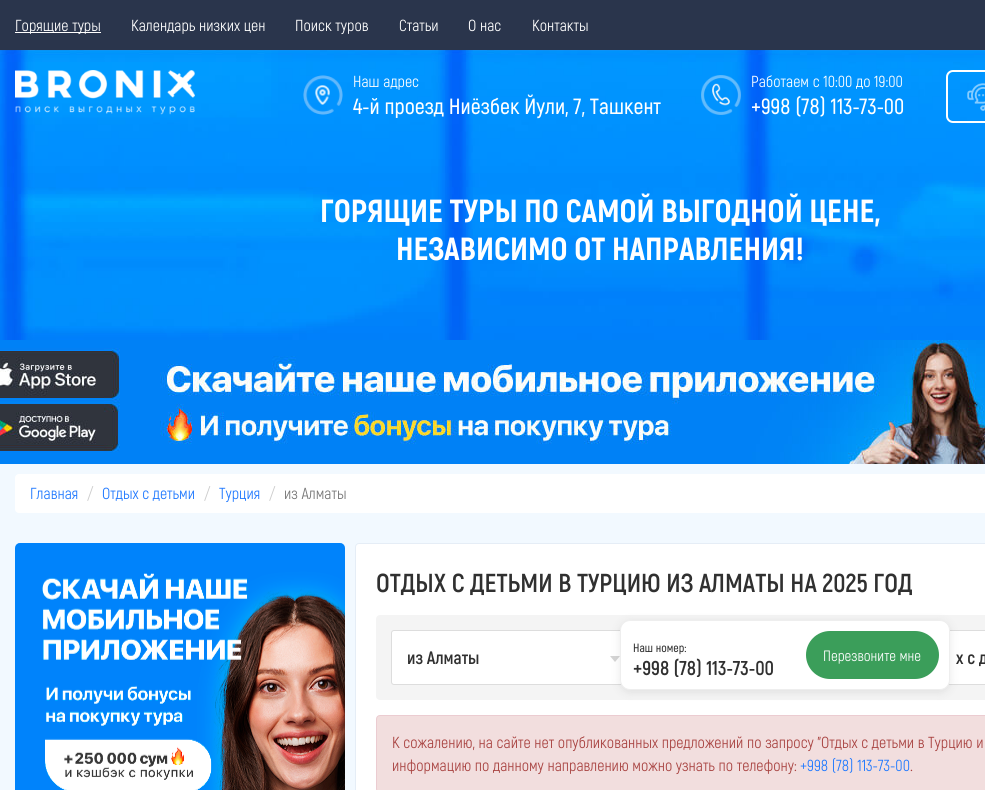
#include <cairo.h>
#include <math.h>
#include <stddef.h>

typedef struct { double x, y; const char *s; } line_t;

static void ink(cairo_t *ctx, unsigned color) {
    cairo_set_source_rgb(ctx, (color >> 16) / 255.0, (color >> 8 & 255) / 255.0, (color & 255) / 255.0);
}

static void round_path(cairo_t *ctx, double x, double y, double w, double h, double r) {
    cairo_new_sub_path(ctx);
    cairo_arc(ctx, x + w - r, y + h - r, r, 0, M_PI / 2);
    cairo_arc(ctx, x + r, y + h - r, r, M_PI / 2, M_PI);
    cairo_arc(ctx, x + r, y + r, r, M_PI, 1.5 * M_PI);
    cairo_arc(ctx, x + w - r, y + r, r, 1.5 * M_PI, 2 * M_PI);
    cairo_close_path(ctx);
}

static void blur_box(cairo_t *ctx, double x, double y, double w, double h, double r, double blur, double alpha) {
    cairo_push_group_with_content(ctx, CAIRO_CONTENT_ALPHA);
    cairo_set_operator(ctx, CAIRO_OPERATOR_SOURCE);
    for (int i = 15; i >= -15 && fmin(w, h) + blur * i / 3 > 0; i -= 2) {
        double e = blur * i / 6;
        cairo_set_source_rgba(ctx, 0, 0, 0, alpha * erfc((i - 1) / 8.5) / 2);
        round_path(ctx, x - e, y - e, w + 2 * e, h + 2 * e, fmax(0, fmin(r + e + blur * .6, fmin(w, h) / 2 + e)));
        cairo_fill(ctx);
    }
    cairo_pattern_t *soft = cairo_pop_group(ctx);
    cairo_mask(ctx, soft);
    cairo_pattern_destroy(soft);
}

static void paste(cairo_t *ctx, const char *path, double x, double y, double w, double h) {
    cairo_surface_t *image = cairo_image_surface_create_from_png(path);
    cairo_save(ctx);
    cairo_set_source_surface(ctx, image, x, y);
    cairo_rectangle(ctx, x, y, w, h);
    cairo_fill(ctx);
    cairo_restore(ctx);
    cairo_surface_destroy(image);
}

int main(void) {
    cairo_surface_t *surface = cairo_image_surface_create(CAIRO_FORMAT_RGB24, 985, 790);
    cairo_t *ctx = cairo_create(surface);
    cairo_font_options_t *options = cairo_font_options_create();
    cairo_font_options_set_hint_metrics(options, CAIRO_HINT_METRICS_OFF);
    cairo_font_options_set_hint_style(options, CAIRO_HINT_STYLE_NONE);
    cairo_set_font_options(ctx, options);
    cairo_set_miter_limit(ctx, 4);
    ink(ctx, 0xF2F9FF);
    cairo_paint(ctx);
    ink(ctx, 0x2A354C);
    cairo_rectangle(ctx, 0, 0, 985, 50);
    cairo_fill(ctx);
    ink(ctx, 0xFFFFFF);
    cairo_rectangle(ctx, 15, 32, 86, 1);
    cairo_fill(ctx);
    cairo_select_font_face(ctx, "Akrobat", CAIRO_FONT_SLANT_NORMAL, CAIRO_FONT_WEIGHT_NORMAL);
    cairo_set_font_size(ctx, 16);
    {
        static const line_t items[] = {
            {15, 31, "Горящие туры"},
            {131, 31, "Календарь низких цен"},
            {295, 31, "Поиск туров"},
            {399, 31, "Статьи"},
            {468, 31, "О нас"},
            {532, 31, "Контакты"},
        };
        for (size_t i = 0; i < sizeof items / sizeof *items; i++) {
            cairo_move_to(ctx, items[i].x, items[i].y);
            cairo_show_text(ctx, items[i].s);
        }
    }
    paste(ctx, "media/1.png", 0, 50, 985, 290);
    paste(ctx, "media/2.png", 15, 70, 180, 45);
    paste(ctx, "media/3.png", 303, 75, 40, 40);
    cairo_move_to(ctx, 353, 87);
    cairo_show_text(ctx, "Наш адрес");
    cairo_select_font_face(ctx, "Akrobat SemiBold", CAIRO_FONT_SLANT_NORMAL, CAIRO_FONT_WEIGHT_NORMAL);
    cairo_set_font_size(ctx, 22);
    cairo_move_to(ctx, 353, 114);
    cairo_show_text(ctx, "4-й проезд Ниёзбек Йули, 7, Ташкент");
    paste(ctx, "media/4.png", 701, 75, 40, 40);
    cairo_select_font_face(ctx, "Akrobat", CAIRO_FONT_SLANT_NORMAL, CAIRO_FONT_WEIGHT_NORMAL);
    cairo_set_font_size(ctx, 16);
    cairo_move_to(ctx, 751, 87);
    cairo_show_text(ctx, "Работаем с 10:00 до 19:00");
    cairo_select_font_face(ctx, "Akrobat SemiBold", CAIRO_FONT_SLANT_NORMAL, CAIRO_FONT_WEIGHT_NORMAL);
    cairo_set_font_size(ctx, 22);
    cairo_move_to(ctx, 751, 114);
    cairo_show_text(ctx, "+998 (78) 113-73-00");
    round_path(ctx, 947, 71, 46, 51, 6);
    cairo_stroke(ctx);
    paste(ctx, "media/5.png", 967, 83, 18, 28);
    cairo_select_font_face(ctx, "Akrobat ExtraBold", CAIRO_FONT_SLANT_NORMAL, CAIRO_FONT_WEIGHT_NORMAL);
    cairo_set_font_size(ctx, 32);
    cairo_move_to(ctx, 320, 222);
    cairo_show_text(ctx, "ГОРЯЩИЕ ТУРЫ ПО САМОЙ ВЫГОДНОЙ ЦЕНЕ,");
    cairo_move_to(ctx, 396, 260);
    cairo_show_text(ctx, "НЕЗАВИСИМО ОТ НАПРАВЛЕНИЯ!");
    paste(ctx, "media/6.png", 0, 340, 985, 124);
    round_path(ctx, 15, 474, 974, 39, 4);
    cairo_fill(ctx);
    cairo_select_font_face(ctx, "Akrobat", CAIRO_FONT_SLANT_NORMAL, CAIRO_FONT_WEIGHT_NORMAL);
    cairo_set_font_size(ctx, 16);
    ink(ctx, 0x2079FF);
    cairo_move_to(ctx, 30, 499);
    cairo_show_text(ctx, "Главная");
    ink(ctx, 0xCCCCCC);
    cairo_move_to(ctx, 87, 499);
    cairo_show_text(ctx, "/");
    ink(ctx, 0x2079FF);
    cairo_move_to(ctx, 102, 499);
    cairo_show_text(ctx, "Отдых с детьми");
    ink(ctx, 0xCCCCCC);
    cairo_move_to(ctx, 204, 499);
    cairo_show_text(ctx, "/");
    ink(ctx, 0x2079FF);
    cairo_move_to(ctx, 219, 499);
    cairo_show_text(ctx, "Турция");
    ink(ctx, 0xCCCCCC);
    cairo_move_to(ctx, 269, 499);
    cairo_show_text(ctx, "/");
    ink(ctx, 0x777777);
    cairo_move_to(ctx, 284, 499);
    cairo_show_text(ctx, "из Алматы");
    paste(ctx, "media/7.png", 15, 543, 330, 247);
    ink(ctx, 0xFFFFFF);
    round_path(ctx, 355.5, 543.5, 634, 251, 3.5);
    cairo_fill_preserve(ctx);
    ink(ctx, 0xE5EDF6);
    cairo_set_line_width(ctx, 1);
    cairo_stroke(ctx);
    cairo_select_font_face(ctx, "Akrobat", CAIRO_FONT_SLANT_NORMAL, CAIRO_FONT_WEIGHT_BOLD);
    cairo_set_font_size(ctx, 26);
    ink(ctx, 0x303030);
    cairo_move_to(ctx, 376, 592);
    cairo_show_text(ctx, "ОТДЫХ С ДЕТЬМИ В ТУРЦИЮ ИЗ АЛМАТЫ НА 2025 ГОД");
    ink(ctx, 0xF4F4F4);
    round_path(ctx, 376, 615, 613, 85, 4);
    cairo_fill(ctx);
    ink(ctx, 0xFFFFFF);
    round_path(ctx, 391.5, 630.5, 244, 54, 2.5);
    cairo_fill_preserve(ctx);
    ink(ctx, 0xDDDDDD);
    cairo_stroke(ctx);
    cairo_set_font_size(ctx, 18);
    ink(ctx, 0x303030);
    cairo_move_to(ctx, 407, 664);
    cairo_show_text(ctx, "из Алматы");
    ink(ctx, 0xD4D4D4);
    cairo_new_path(ctx);
    cairo_move_to(ctx, 610, 656);
    cairo_line_to(ctx, 620, 656);
    cairo_line_to(ctx, 615, 662);
    cairo_close_path(ctx);
    cairo_fill(ctx);
    ink(ctx, 0xFFFFFF);
    cairo_rectangle(ctx, 949, 631, 36, 53);
    cairo_fill(ctx);
    cairo_rectangle(ctx, 904.5, 630.5, 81, 54);
    ink(ctx, 0xDDDDDD);
    cairo_stroke(ctx);
    ink(ctx, 0x303030);
    cairo_move_to(ctx, 956, 664);
    cairo_show_text(ctx, "х с д");
    ink(ctx, 0xF2DEDE);
    round_path(ctx, 376.5, 715.5, 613, 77, 3.5);
    cairo_fill_preserve(ctx);
    ink(ctx, 0xEBCCD1);
    cairo_stroke(ctx);
    cairo_select_font_face(ctx, "Akrobat", CAIRO_FONT_SLANT_NORMAL, CAIRO_FONT_WEIGHT_NORMAL);
    cairo_set_font_size(ctx, 16);
    ink(ctx, 0xA94442);
    cairo_move_to(ctx, 392, 748);
    cairo_show_text(ctx, "К сожалению, на сайте нет опубликованных предложений по запросу \"Отдых с детьми в Турцию и");
    cairo_move_to(ctx, 392, 771);
    cairo_show_text(ctx, "информацию по данному направлению можно узнать по телефону:");
    ink(ctx, 0x2079FF);
    cairo_move_to(ctx, 800, 771);
    cairo_show_text(ctx, "+998 (78) 113-73-00");
    ink(ctx, 0xA94442);
    cairo_move_to(ctx, 910, 771);
    cairo_show_text(ctx, ".");
    ink(ctx, 0x000000);
    blur_box(ctx, 620, 622, 330, 70, 10, 5, 0.09);
    ink(ctx, 0xFFFFFF);
    round_path(ctx, 620.5, 620.5, 329, 69, 9.5);
    cairo_fill_preserve(ctx);
    ink(ctx, 0xEEEEEE);
    cairo_stroke(ctx);
    cairo_select_font_face(ctx, "Akrobat SemiBold", CAIRO_FONT_SLANT_NORMAL, CAIRO_FONT_WEIGHT_NORMAL);
    cairo_set_font_size(ctx, 12);
    ink(ctx, 0x303030);
    cairo_move_to(ctx, 633, 652);
    cairo_show_text(ctx, "Наш номер:");
    cairo_save(ctx);
    cairo_rectangle(ctx, 631, 634, 150, 43);
    cairo_clip(ctx);
    cairo_select_font_face(ctx, "Akrobat", CAIRO_FONT_SLANT_NORMAL, CAIRO_FONT_WEIGHT_BOLD);
    cairo_set_font_size(ctx, 20);
    cairo_move_to(ctx, 633, 675);
    cairo_show_text(ctx, "+998 (78) 113-73-00");
    cairo_restore(ctx);
    ink(ctx, 0x3B9E5A);
    round_path(ctx, 806, 631, 133, 48, 24);
    cairo_fill(ctx);
    cairo_select_font_face(ctx, "Akrobat", CAIRO_FONT_SLANT_NORMAL, CAIRO_FONT_WEIGHT_NORMAL);
    cairo_set_font_size(ctx, 15);
    ink(ctx, 0xFFFFFF);
    cairo_move_to(ctx, 823, 661);
    cairo_show_text(ctx, "Перезвоните мне");
    cairo_surface_write_to_png(surface, "image.png");
    cairo_font_options_destroy(options);
    cairo_destroy(ctx);
    cairo_surface_destroy(surface);
    return 0;
}
